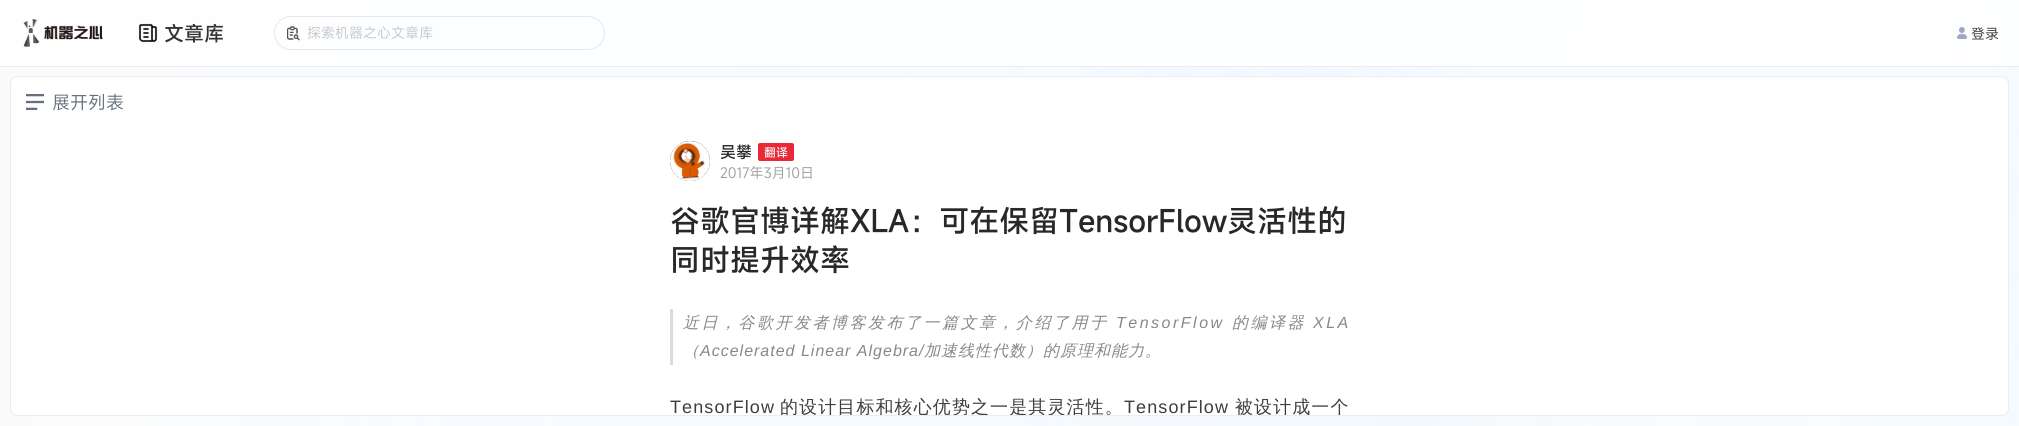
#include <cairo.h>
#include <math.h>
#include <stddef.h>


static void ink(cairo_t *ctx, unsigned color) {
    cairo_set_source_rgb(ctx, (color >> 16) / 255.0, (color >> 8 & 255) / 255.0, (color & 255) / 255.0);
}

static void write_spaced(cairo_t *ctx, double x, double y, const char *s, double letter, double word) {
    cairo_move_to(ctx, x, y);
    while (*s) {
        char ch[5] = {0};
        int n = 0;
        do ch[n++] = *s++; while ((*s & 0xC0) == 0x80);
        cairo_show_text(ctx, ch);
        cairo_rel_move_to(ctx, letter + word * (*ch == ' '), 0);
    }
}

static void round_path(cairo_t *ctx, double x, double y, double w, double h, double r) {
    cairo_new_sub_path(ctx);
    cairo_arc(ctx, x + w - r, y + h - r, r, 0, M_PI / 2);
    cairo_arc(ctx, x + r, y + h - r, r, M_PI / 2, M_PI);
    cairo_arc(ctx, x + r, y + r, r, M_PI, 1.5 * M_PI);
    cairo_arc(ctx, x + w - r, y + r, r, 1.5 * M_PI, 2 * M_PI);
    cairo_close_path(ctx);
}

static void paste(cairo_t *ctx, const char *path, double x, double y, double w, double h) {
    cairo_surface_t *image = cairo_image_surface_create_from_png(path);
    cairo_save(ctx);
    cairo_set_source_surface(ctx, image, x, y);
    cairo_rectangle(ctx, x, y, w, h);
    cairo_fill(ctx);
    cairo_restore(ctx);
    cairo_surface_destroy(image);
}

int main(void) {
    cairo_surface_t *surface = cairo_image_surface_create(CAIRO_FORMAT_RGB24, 2019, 426);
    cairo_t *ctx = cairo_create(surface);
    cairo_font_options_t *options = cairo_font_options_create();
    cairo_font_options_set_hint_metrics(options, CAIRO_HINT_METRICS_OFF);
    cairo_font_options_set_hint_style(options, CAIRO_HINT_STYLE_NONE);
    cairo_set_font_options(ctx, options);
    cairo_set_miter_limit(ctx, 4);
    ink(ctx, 0xFFFFFF);
    cairo_paint(ctx);
    paste(ctx, "media/1.png", 0, 0, 2019, 426);
    ink(ctx, 0xEBECF1);
    cairo_rectangle(ctx, 0, 66, 2019, 1);
    cairo_fill(ctx);
    cairo_set_source_rgba(ctx, 1, 1, 1, 0.8);
    cairo_rectangle(ctx, 0, 0, 2019, 66);
    cairo_fill(ctx);
    paste(ctx, "media/2.png", 23, 19, 80, 28);
    paste(ctx, "media/3.png", 138, 23, 20, 20);
    cairo_select_font_face(ctx, "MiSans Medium", CAIRO_FONT_SLANT_NORMAL, CAIRO_FONT_WEIGHT_NORMAL);
    cairo_set_font_size(ctx, 20);
    ink(ctx, 0x333333);
    cairo_move_to(ctx, 164, 41);
    cairo_show_text(ctx, "文章库");
    round_path(ctx, 274.5, 16.5, 330, 33, 16.5);
    ink(ctx, 0xE6E7EC);
    cairo_set_line_width(ctx, 1);
    cairo_stroke(ctx);
    paste(ctx, "media/4.png", 287, 26, 13, 15);
    cairo_select_font_face(ctx, "MiSans", CAIRO_FONT_SLANT_NORMAL, CAIRO_FONT_WEIGHT_NORMAL);
    cairo_set_font_size(ctx, 14);
    ink(ctx, 0xC1C7D0);
    cairo_move_to(ctx, 307, 38);
    cairo_show_text(ctx, "探索机器之心文章库");
    paste(ctx, "media/5.png", 1957, 27, 10, 12);
    ink(ctx, 0x333333);
    cairo_move_to(ctx, 1971, 39);
    cairo_show_text(ctx, "登录");
    ink(ctx, 0xFFFFFF);
    round_path(ctx, 10.5, 76.5, 1998, 339, 7.5);
    cairo_fill_preserve(ctx);
    ink(ctx, 0xEBECF1);
    cairo_stroke(ctx);
    paste(ctx, "media/6.png", 26, 94, 18, 16);
    cairo_set_font_size(ctx, 18);
    ink(ctx, 0x666F7D);
    cairo_move_to(ctx, 52, 109);
    cairo_show_text(ctx, "展开列表");
    ink(ctx, 0x333333);
    cairo_new_path(ctx);
    cairo_arc(ctx, 690, 161, 20, 0, 2 * M_PI);
    cairo_fill(ctx);
    paste(ctx, "media/7.png", 670, 141, 40, 40);
    cairo_select_font_face(ctx, "MiSans Medium", CAIRO_FONT_SLANT_NORMAL, CAIRO_FONT_WEIGHT_NORMAL);
    cairo_set_font_size(ctx, 16);
    ink(ctx, 0x282828);
    cairo_move_to(ctx, 720, 158);
    cairo_show_text(ctx, "吴攀");
    ink(ctx, 0xEB2835);
    round_path(ctx, 758, 143, 36, 18, 2);
    cairo_fill(ctx);
    cairo_set_font_size(ctx, 12);
    ink(ctx, 0xF6F6F6);
    cairo_move_to(ctx, 764, 157);
    cairo_show_text(ctx, "翻译");
    cairo_select_font_face(ctx, "MiSans", CAIRO_FONT_SLANT_NORMAL, CAIRO_FONT_WEIGHT_NORMAL);
    cairo_set_font_size(ctx, 14);
    ink(ctx, 0x9D9D9D);
    cairo_move_to(ctx, 720, 178);
    cairo_show_text(ctx, "2017年3月10日");
    cairo_select_font_face(ctx, "MiSans Medium", CAIRO_FONT_SLANT_NORMAL, CAIRO_FONT_WEIGHT_NORMAL);
    cairo_set_font_size(ctx, 30);
    ink(ctx, 0x282828);
    cairo_move_to(ctx, 670, 232);
    cairo_show_text(ctx, "谷歌官博详解XLA：可在保留TensorFlow灵活性的");
    cairo_move_to(ctx, 670, 271);
    cairo_show_text(ctx, "同时提升效率");
    ink(ctx, 0xDBDBDB);
    cairo_rectangle(ctx, 670, 309, 3, 56);
    cairo_fill(ctx);
    cairo_select_font_face(ctx, "WenQuanYi Zen Hei Medium", CAIRO_FONT_SLANT_ITALIC, CAIRO_FONT_WEIGHT_NORMAL);
    cairo_set_font_size(ctx, 16);
    ink(ctx, 0x888888);
    write_spaced(ctx, 683, 328, "近日，谷歌开发者博客发布了一篇文章，介绍了用于", 2.5, 0);
    cairo_select_font_face(ctx, "Liberation Sans", CAIRO_FONT_SLANT_ITALIC, CAIRO_FONT_WEIGHT_NORMAL);
    write_spaced(ctx, 1116, 328, "TensorFlow", 2.5, 0);
    cairo_select_font_face(ctx, "WenQuanYi Zen Hei Medium", CAIRO_FONT_SLANT_ITALIC, CAIRO_FONT_WEIGHT_NORMAL);
    write_spaced(ctx, 1232, 328, "的编译器", 2.5, 0);
    cairo_select_font_face(ctx, "Liberation Sans", CAIRO_FONT_SLANT_ITALIC, CAIRO_FONT_WEIGHT_NORMAL);
    write_spaced(ctx, 1313, 328, "XLA", 2.5, 0);
    cairo_select_font_face(ctx, "WenQuanYi Zen Hei Medium", CAIRO_FONT_SLANT_ITALIC, CAIRO_FONT_WEIGHT_NORMAL);
    write_spaced(ctx, 683, 356, "（", 1, 0);
    cairo_select_font_face(ctx, "Liberation Sans", CAIRO_FONT_SLANT_ITALIC, CAIRO_FONT_WEIGHT_NORMAL);
    write_spaced(ctx, 700, 356, "Accelerated Linear Algebra/", 1, 0);
    cairo_select_font_face(ctx, "WenQuanYi Zen Hei Medium", CAIRO_FONT_SLANT_ITALIC, CAIRO_FONT_WEIGHT_NORMAL);
    write_spaced(ctx, 924, 356, "加速线性代数）的原理和能力。", 1, 0);
    cairo_select_font_face(ctx, "Liberation Sans", CAIRO_FONT_SLANT_NORMAL, CAIRO_FONT_WEIGHT_NORMAL);
    cairo_set_font_size(ctx, 18);
    ink(ctx, 0x3E3E3E);
    write_spaced(ctx, 670, 413, "TensorFlow", 1.1, 0);
    cairo_save(ctx);
    round_path(ctx, 11, 77, 1997, 338, 7);
    cairo_clip(ctx);
    cairo_select_font_face(ctx, "WenQuanYi Zen Hei Medium", CAIRO_FONT_SLANT_NORMAL, CAIRO_FONT_WEIGHT_NORMAL);
    write_spaced(ctx, 780, 413, "的设计目标和核心优势之一是其灵活性。", 1.1, 0);
    cairo_restore(ctx);
    write_spaced(ctx, 1124, 413, "TensorFlow", 1.1, 0);
    cairo_save(ctx);
    round_path(ctx, 11, 77, 1997, 338, 7);
    cairo_clip(ctx);
    cairo_select_font_face(ctx, "WenQuanYi Zen Hei Medium", CAIRO_FONT_SLANT_NORMAL, CAIRO_FONT_WEIGHT_NORMAL);
    write_spaced(ctx, 1235, 413, "被设计成一个", 1.1, 0);
    cairo_restore(ctx);
    cairo_surface_write_to_png(surface, "image.png");
    cairo_font_options_destroy(options);
    cairo_destroy(ctx);
    cairo_surface_destroy(surface);
    return 0;
}
